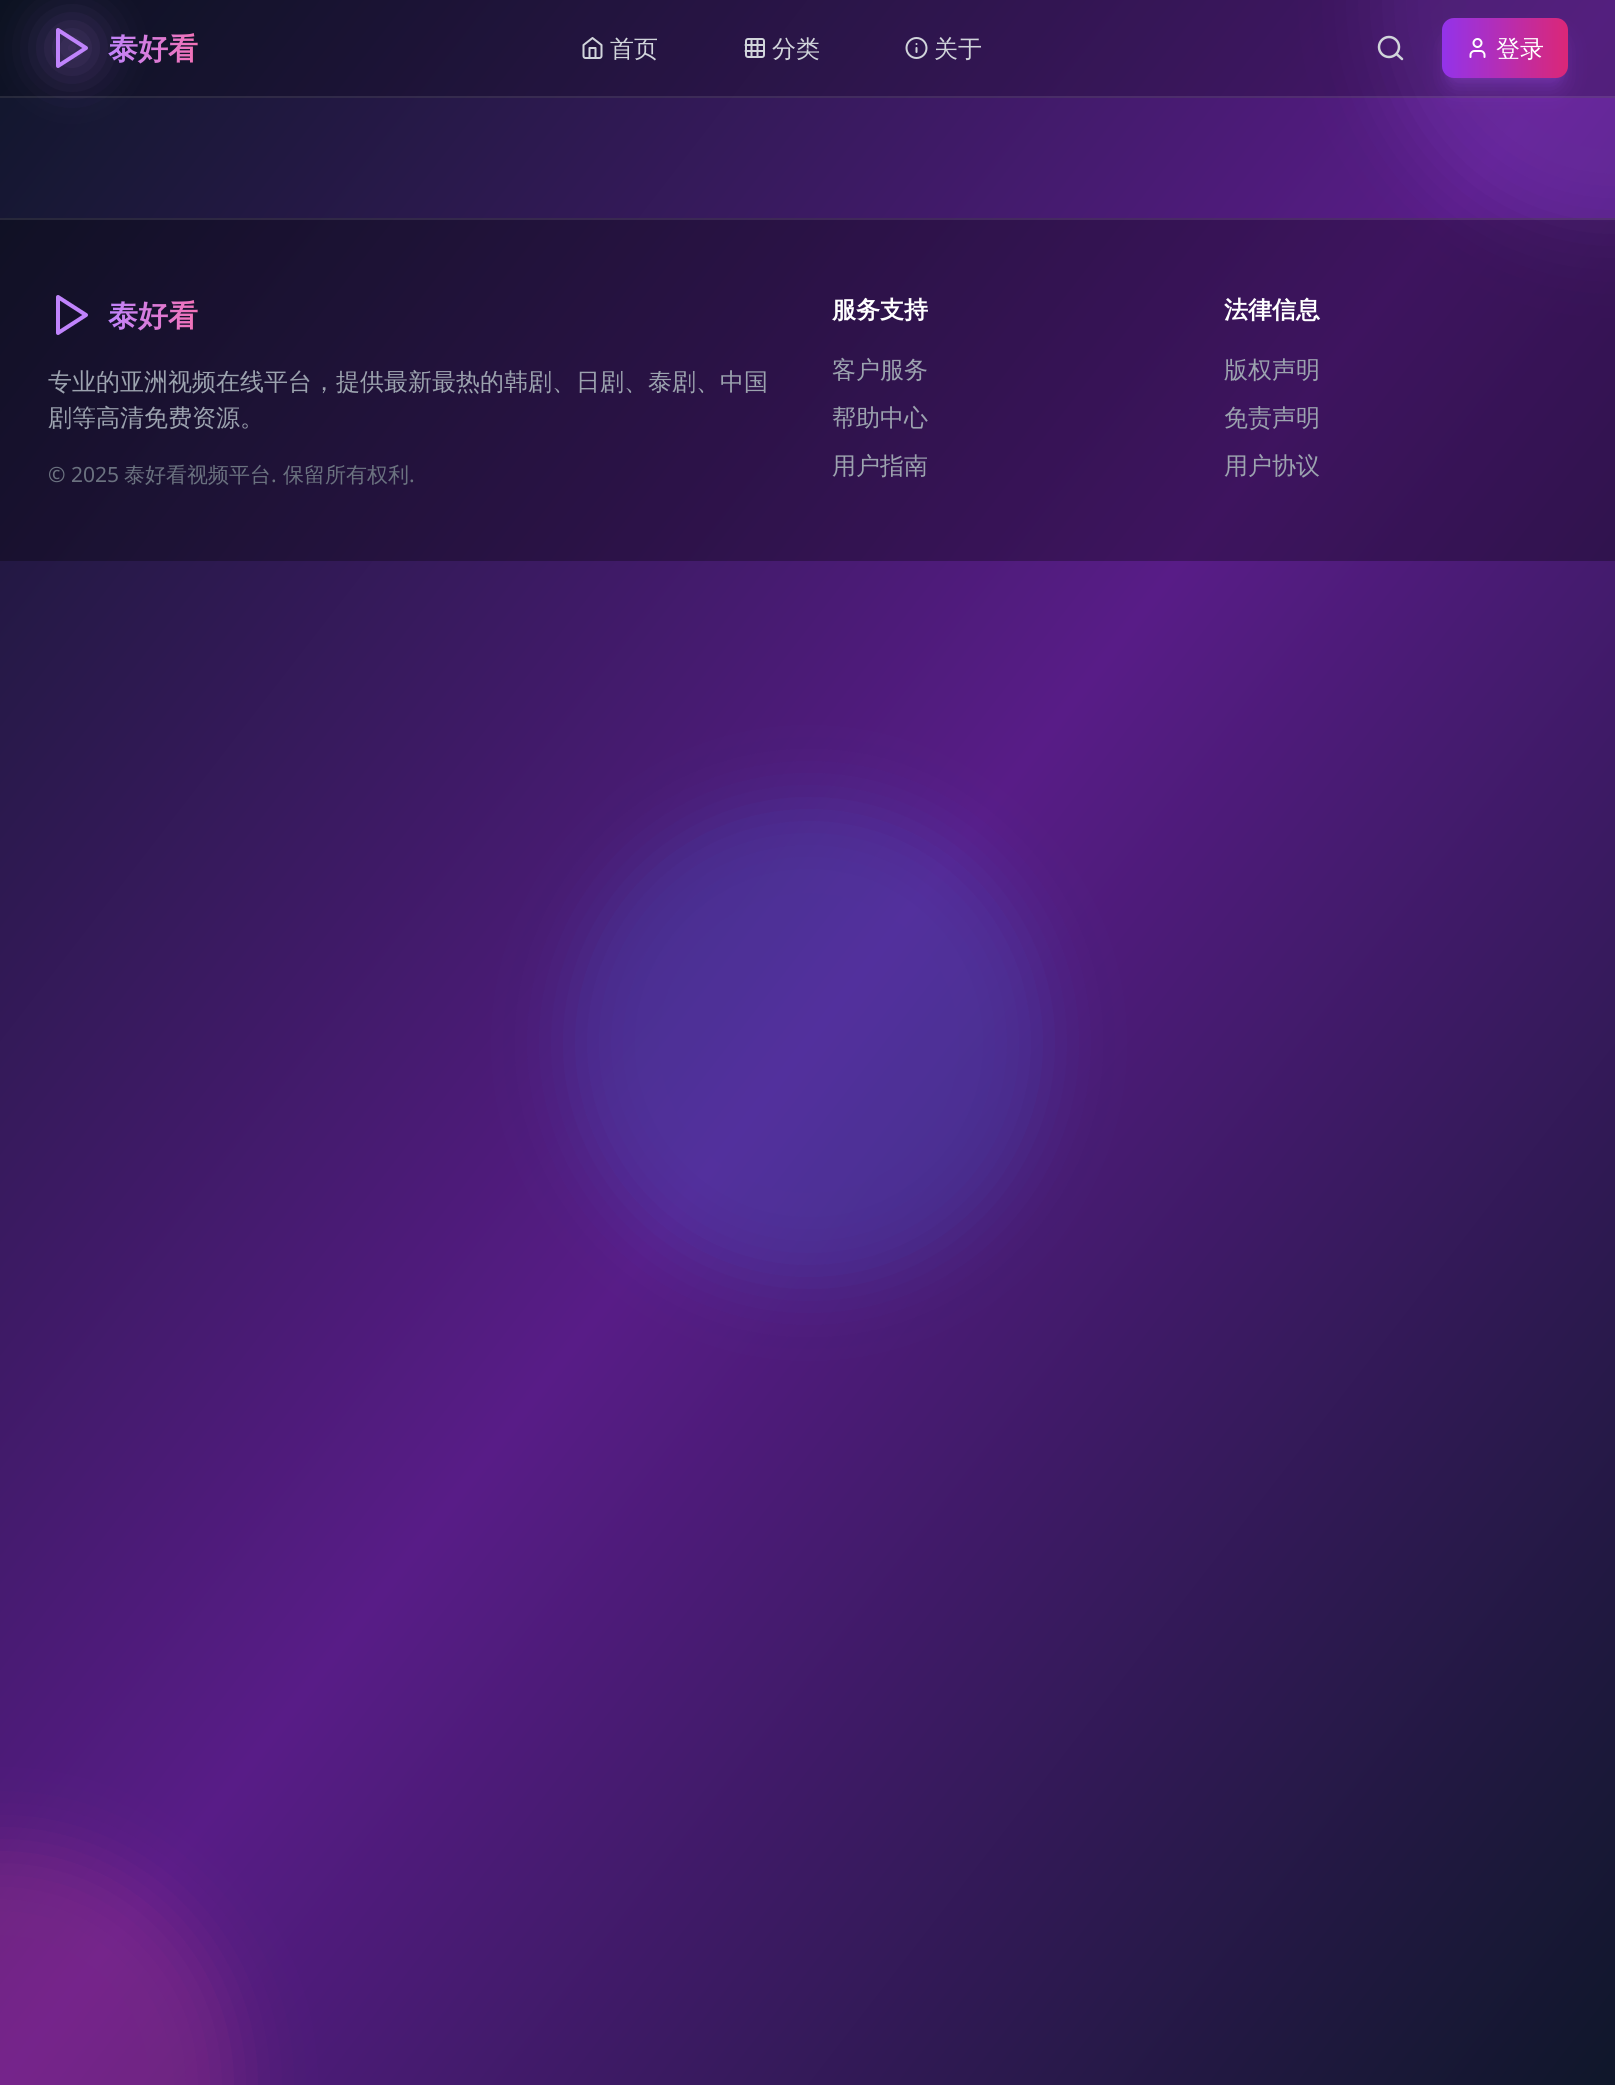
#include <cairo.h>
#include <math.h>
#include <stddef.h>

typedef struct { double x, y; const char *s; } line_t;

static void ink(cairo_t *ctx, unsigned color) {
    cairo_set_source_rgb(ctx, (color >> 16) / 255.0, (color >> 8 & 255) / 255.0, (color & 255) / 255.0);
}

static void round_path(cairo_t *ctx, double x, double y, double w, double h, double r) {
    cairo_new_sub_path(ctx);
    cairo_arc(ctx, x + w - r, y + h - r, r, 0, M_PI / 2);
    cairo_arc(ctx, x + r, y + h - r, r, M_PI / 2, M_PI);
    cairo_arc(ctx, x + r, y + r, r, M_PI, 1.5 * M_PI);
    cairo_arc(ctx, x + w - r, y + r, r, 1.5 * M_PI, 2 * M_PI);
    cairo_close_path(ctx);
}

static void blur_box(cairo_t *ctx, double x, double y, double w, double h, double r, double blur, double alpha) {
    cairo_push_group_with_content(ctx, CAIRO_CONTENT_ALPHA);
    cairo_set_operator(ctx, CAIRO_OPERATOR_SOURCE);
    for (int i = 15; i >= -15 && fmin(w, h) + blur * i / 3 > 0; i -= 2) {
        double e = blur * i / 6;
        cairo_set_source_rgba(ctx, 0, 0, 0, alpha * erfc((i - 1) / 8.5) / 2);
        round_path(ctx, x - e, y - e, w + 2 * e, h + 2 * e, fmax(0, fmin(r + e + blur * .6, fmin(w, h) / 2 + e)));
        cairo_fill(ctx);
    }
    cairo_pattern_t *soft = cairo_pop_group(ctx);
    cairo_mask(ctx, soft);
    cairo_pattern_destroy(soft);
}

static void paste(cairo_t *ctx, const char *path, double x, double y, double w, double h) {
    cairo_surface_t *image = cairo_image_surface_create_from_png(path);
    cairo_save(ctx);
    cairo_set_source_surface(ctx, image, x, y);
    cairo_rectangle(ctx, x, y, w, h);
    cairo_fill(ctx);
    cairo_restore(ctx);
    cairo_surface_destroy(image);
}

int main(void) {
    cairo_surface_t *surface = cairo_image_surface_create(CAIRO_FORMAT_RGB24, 1615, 2085);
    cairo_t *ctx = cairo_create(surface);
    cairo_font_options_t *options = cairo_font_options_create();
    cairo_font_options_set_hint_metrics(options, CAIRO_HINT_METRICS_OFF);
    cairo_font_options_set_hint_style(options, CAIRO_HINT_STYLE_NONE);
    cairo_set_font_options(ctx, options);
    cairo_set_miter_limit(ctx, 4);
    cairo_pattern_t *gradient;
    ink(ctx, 0xFFFFFF);
    cairo_paint(ctx);
    gradient = cairo_pattern_create_linear(-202, 260, 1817, 1825);
    cairo_pattern_add_color_stop_rgba(gradient, 0, 0.059, 0.09, 0.165, 1);
    cairo_pattern_add_color_stop_rgba(gradient, 0.5, 0.345, 0.11, 0.529, 1);
    cairo_pattern_add_color_stop_rgba(gradient, 1, 0.059, 0.09, 0.165, 1);
    cairo_set_source(ctx, gradient);
    cairo_pattern_destroy(gradient);
    cairo_rectangle(ctx, 0, 0, 1615, 2085);
    cairo_fill(ctx);
    ink(ctx, 0xA855F7);
    blur_box(ctx, 1376, -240, 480, 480, 240, 36, 0.2);
    ink(ctx, 0x3B82F6);
    blur_box(ctx, 569, 803, 480, 480, 240, 36, 0.2);
    ink(ctx, 0xEC4899);
    blur_box(ctx, -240, 1845, 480, 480, 240, 36, 0.2);
    cairo_set_source_rgba(ctx, 0, 0, 0, 0.2);
    cairo_rectangle(ctx, 0, 0, 1615, 98);
    cairo_fill(ctx);
    cairo_set_source_rgba(ctx, 1, 1, 1, 0.1);
    cairo_rectangle(ctx, 0, 96, 1615, 2);
    cairo_fill(ctx);
    cairo_new_path(ctx);
    cairo_move_to(ctx, 58, 30);
    cairo_line_to(ctx, 86, 48);
    cairo_line_to(ctx, 58, 66);
    cairo_close_path(ctx);
    ink(ctx, 0xC084FC);
    cairo_set_line_width(ctx, 4);
    cairo_set_line_cap(ctx, CAIRO_LINE_CAP_ROUND);
    cairo_set_line_join(ctx, CAIRO_LINE_JOIN_ROUND);
    cairo_stroke(ctx);
    ink(ctx, 0xC084FC);
    blur_box(ctx, 48, 24, 48, 48, 24, 24, 0.3);
    cairo_select_font_face(ctx, "WenQuanYi Zen Hei", CAIRO_FONT_SLANT_NORMAL, CAIRO_FONT_WEIGHT_BOLD);
    cairo_set_font_size(ctx, 30);
    gradient = cairo_pattern_create_linear(108, 48, 198, 48);
    cairo_pattern_add_color_stop_rgba(gradient, 0, 0.753, 0.518, 0.988, 1);
    cairo_pattern_add_color_stop_rgba(gradient, 1, 0.957, 0.447, 0.714, 1);
    cairo_set_source(ctx, gradient);
    cairo_pattern_destroy(gradient);
    cairo_move_to(ctx, 108, 59);
    cairo_show_text(ctx, "泰好看");
    paste(ctx, "media/1.png", 582, 37, 21, 22);
    cairo_select_font_face(ctx, "WenQuanYi Zen Hei Medium", CAIRO_FONT_SLANT_NORMAL, CAIRO_FONT_WEIGHT_NORMAL);
    cairo_set_font_size(ctx, 24);
    ink(ctx, 0xD1D5DB);
    cairo_move_to(ctx, 610, 57);
    cairo_show_text(ctx, "首页");
    paste(ctx, "media/2.png", 744, 38, 21, 20);
    cairo_move_to(ctx, 772, 57);
    cairo_show_text(ctx, "分类");
    cairo_new_path(ctx);
    cairo_arc(ctx, 916.5, 48, 10, 0, 2 * M_PI);
    cairo_set_line_width(ctx, 2);
    cairo_set_line_cap(ctx, CAIRO_LINE_CAP_BUTT);
    cairo_set_line_join(ctx, CAIRO_LINE_JOIN_MITER);
    cairo_stroke(ctx);
    cairo_new_path(ctx);
    cairo_move_to(ctx, 916.5, 52);
    cairo_line_to(ctx, 916.5, 48);
    cairo_move_to(ctx, 916.5, 44);
    cairo_line_to(ctx, 916.5, 44);
    cairo_set_line_cap(ctx, CAIRO_LINE_CAP_ROUND);
    cairo_set_line_join(ctx, CAIRO_LINE_JOIN_ROUND);
    cairo_stroke(ctx);
    cairo_move_to(ctx, 934, 57);
    cairo_show_text(ctx, "关于");
    cairo_new_path(ctx);
    cairo_arc(ctx, 1389, 47, 10, 0, 2 * M_PI);
    cairo_set_line_width(ctx, 2.5);
    cairo_set_line_cap(ctx, CAIRO_LINE_CAP_BUTT);
    cairo_set_line_join(ctx, CAIRO_LINE_JOIN_MITER);
    cairo_stroke(ctx);
    cairo_new_path(ctx);
    cairo_move_to(ctx, 1402, 59);
    cairo_line_to(ctx, 1396.5, 54);
    cairo_set_line_cap(ctx, CAIRO_LINE_CAP_ROUND);
    cairo_set_line_join(ctx, CAIRO_LINE_JOIN_ROUND);
    cairo_stroke(ctx);
    ink(ctx, 0xA855F7);
    blur_box(ctx, 1448, 30, 114, 48, 6, 4.5, 0.25);
    blur_box(ctx, 1446, 38, 117, 51, 8, 11, 0.25);
    gradient = cairo_pattern_create_linear(1442, 48, 1568, 48);
    cairo_pattern_add_color_stop_rgba(gradient, 0, 0.576, 0.2, 0.918, 1);
    cairo_pattern_add_color_stop_rgba(gradient, 1, 0.859, 0.153, 0.467, 1);
    cairo_set_source(ctx, gradient);
    cairo_pattern_destroy(gradient);
    round_path(ctx, 1442, 18, 126, 60, 12);
    cairo_fill(ctx);
    paste(ctx, "media/3.png", 1469, 38, 17, 20);
    ink(ctx, 0xFFFFFF);
    cairo_move_to(ctx, 1496, 57);
    cairo_show_text(ctx, "登录");
    cairo_set_source_rgba(ctx, 0, 0, 0, 0.3);
    cairo_rectangle(ctx, 0, 218, 1615, 343);
    cairo_fill(ctx);
    cairo_set_source_rgba(ctx, 1, 1, 1, 0.1);
    cairo_rectangle(ctx, 0, 218, 1615, 2);
    cairo_fill(ctx);
    cairo_new_path(ctx);
    cairo_move_to(ctx, 58, 297);
    cairo_line_to(ctx, 86, 315);
    cairo_line_to(ctx, 58, 333);
    cairo_close_path(ctx);
    ink(ctx, 0xC084FC);
    cairo_set_line_width(ctx, 4);
    cairo_stroke(ctx);
    cairo_select_font_face(ctx, "WenQuanYi Zen Hei", CAIRO_FONT_SLANT_NORMAL, CAIRO_FONT_WEIGHT_BOLD);
    cairo_set_font_size(ctx, 30);
    gradient = cairo_pattern_create_linear(108, 315, 198, 315);
    cairo_pattern_add_color_stop_rgba(gradient, 0, 0.753, 0.518, 0.988, 1);
    cairo_pattern_add_color_stop_rgba(gradient, 1, 0.957, 0.447, 0.714, 1);
    cairo_set_source(ctx, gradient);
    cairo_pattern_destroy(gradient);
    cairo_move_to(ctx, 108, 326);
    cairo_show_text(ctx, "泰好看");
    cairo_select_font_face(ctx, "WenQuanYi Zen Hei Medium", CAIRO_FONT_SLANT_NORMAL, CAIRO_FONT_WEIGHT_NORMAL);
    cairo_set_font_size(ctx, 24);
    ink(ctx, 0x9CA3AF);
    cairo_move_to(ctx, 48, 390);
    cairo_show_text(ctx, "专业的亚洲视频在线平台，提供最新最热的韩剧、日剧、泰剧、中国");
    cairo_move_to(ctx, 48, 426);
    cairo_show_text(ctx, "剧等高清免费资源。");
    cairo_select_font_face(ctx, "Noto Sans", CAIRO_FONT_SLANT_NORMAL, CAIRO_FONT_WEIGHT_NORMAL);
    cairo_set_font_size(ctx, 21);
    ink(ctx, 0x6B7280);
    cairo_move_to(ctx, 48, 482);
    cairo_show_text(ctx, "© 2025");
    cairo_select_font_face(ctx, "WenQuanYi Zen Hei Medium", CAIRO_FONT_SLANT_NORMAL, CAIRO_FONT_WEIGHT_NORMAL);
    cairo_move_to(ctx, 124, 482);
    cairo_show_text(ctx, "泰好看视频平台");
    cairo_select_font_face(ctx, "Noto Sans", CAIRO_FONT_SLANT_NORMAL, CAIRO_FONT_WEIGHT_NORMAL);
    cairo_move_to(ctx, 271, 482);
    cairo_show_text(ctx, ".");
    cairo_select_font_face(ctx, "WenQuanYi Zen Hei Medium", CAIRO_FONT_SLANT_NORMAL, CAIRO_FONT_WEIGHT_NORMAL);
    cairo_move_to(ctx, 283, 482);
    cairo_show_text(ctx, "保留所有权利");
    cairo_select_font_face(ctx, "Noto Sans", CAIRO_FONT_SLANT_NORMAL, CAIRO_FONT_WEIGHT_NORMAL);
    cairo_move_to(ctx, 409, 482);
    cairo_show_text(ctx, ".");
    cairo_select_font_face(ctx, "WenQuanYi Zen Hei", CAIRO_FONT_SLANT_NORMAL, CAIRO_FONT_WEIGHT_BOLD);
    cairo_set_font_size(ctx, 24);
    ink(ctx, 0xFFFFFF);
    cairo_move_to(ctx, 832, 318);
    cairo_show_text(ctx, "服务支持");
    cairo_select_font_face(ctx, "WenQuanYi Zen Hei Medium", CAIRO_FONT_SLANT_NORMAL, CAIRO_FONT_WEIGHT_NORMAL);
    ink(ctx, 0x9CA3AF);
    {
        static const line_t items[] = {
            {832, 378, "客户服务"},
            {832, 426, "帮助中心"},
            {832, 474, "用户指南"},
        };
        for (size_t i = 0; i < sizeof items / sizeof *items; i++) {
            cairo_move_to(ctx, items[i].x, items[i].y);
            cairo_show_text(ctx, items[i].s);
        }
    }
    cairo_select_font_face(ctx, "WenQuanYi Zen Hei", CAIRO_FONT_SLANT_NORMAL, CAIRO_FONT_WEIGHT_BOLD);
    ink(ctx, 0xFFFFFF);
    cairo_move_to(ctx, 1224, 318);
    cairo_show_text(ctx, "法律信息");
    cairo_select_font_face(ctx, "WenQuanYi Zen Hei Medium", CAIRO_FONT_SLANT_NORMAL, CAIRO_FONT_WEIGHT_NORMAL);
    ink(ctx, 0x9CA3AF);
    {
        static const line_t items[] = {
            {1224, 378, "版权声明"},
            {1224, 426, "免责声明"},
            {1224, 474, "用户协议"},
        };
        for (size_t i = 0; i < sizeof items / sizeof *items; i++) {
            cairo_move_to(ctx, items[i].x, items[i].y);
            cairo_show_text(ctx, items[i].s);
        }
    }
    cairo_surface_write_to_png(surface, "image.png");
    cairo_font_options_destroy(options);
    cairo_destroy(ctx);
    cairo_surface_destroy(surface);
    return 0;
}
